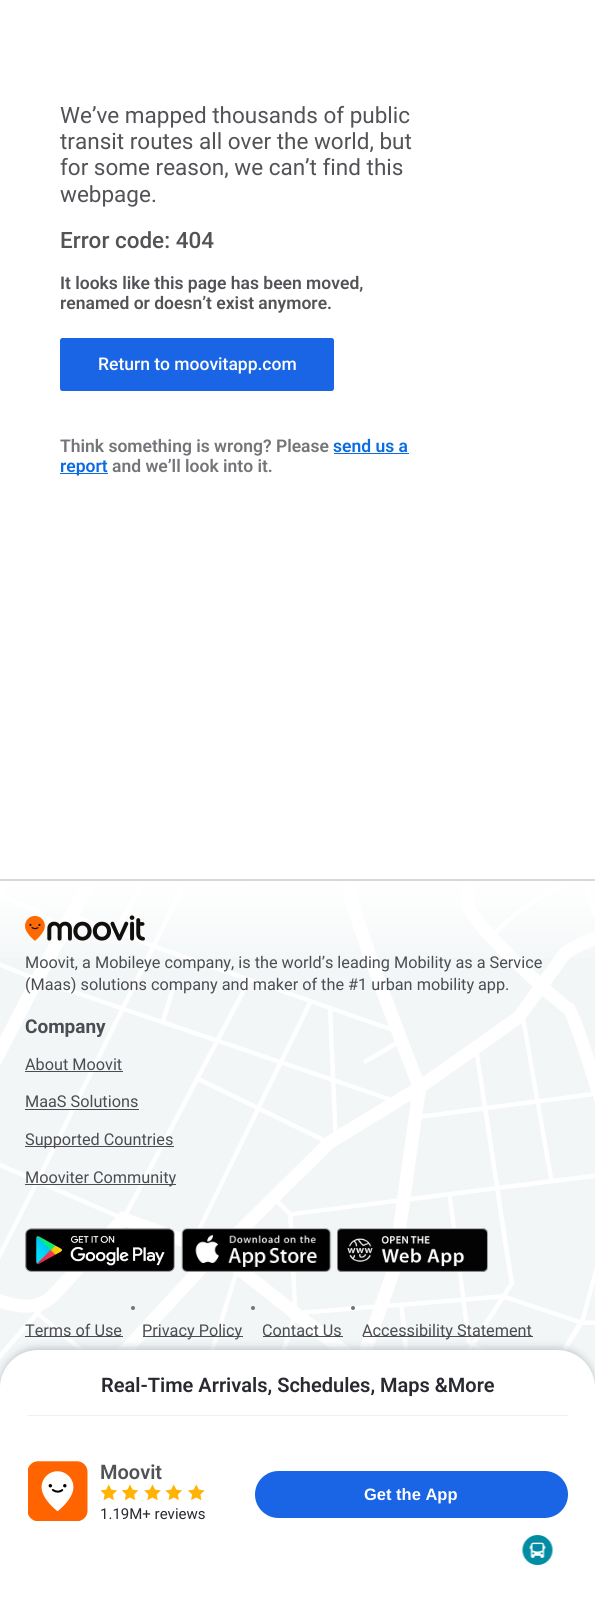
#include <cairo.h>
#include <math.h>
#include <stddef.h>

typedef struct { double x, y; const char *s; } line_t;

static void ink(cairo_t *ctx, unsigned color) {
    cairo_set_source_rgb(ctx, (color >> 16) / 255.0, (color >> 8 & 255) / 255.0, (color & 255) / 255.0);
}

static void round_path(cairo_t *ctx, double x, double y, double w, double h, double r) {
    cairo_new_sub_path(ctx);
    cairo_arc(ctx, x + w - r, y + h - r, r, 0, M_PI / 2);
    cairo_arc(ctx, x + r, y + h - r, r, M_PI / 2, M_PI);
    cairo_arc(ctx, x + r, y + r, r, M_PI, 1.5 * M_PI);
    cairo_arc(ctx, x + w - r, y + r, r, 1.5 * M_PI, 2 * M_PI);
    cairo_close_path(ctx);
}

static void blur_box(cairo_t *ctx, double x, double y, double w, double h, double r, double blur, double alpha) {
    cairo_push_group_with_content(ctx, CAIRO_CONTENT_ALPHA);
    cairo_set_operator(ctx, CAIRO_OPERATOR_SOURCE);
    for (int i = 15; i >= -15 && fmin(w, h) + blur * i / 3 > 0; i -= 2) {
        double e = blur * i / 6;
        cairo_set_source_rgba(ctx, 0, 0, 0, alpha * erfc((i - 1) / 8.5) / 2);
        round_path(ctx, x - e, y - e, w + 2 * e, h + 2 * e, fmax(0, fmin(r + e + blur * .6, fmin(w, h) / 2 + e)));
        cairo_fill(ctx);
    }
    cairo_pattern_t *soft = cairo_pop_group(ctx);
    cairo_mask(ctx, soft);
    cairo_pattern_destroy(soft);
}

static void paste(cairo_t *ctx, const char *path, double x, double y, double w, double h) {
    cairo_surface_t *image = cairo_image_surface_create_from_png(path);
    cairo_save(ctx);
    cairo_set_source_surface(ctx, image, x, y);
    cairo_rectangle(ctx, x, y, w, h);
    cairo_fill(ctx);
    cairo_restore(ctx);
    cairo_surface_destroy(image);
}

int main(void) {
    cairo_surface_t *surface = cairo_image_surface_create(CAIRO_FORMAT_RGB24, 595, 1622);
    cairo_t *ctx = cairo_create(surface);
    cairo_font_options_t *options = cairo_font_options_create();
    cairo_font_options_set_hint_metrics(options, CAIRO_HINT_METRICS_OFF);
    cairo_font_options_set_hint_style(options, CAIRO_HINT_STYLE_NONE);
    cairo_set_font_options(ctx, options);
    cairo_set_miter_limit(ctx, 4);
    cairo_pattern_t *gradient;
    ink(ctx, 0xFFFFFF);
    cairo_paint(ctx);
    cairo_select_font_face(ctx, "Roboto", CAIRO_FONT_SLANT_NORMAL, CAIRO_FONT_WEIGHT_NORMAL);
    cairo_set_font_size(ctx, 22.5);
    ink(ctx, 0x525357);
    {
        static const line_t items[] = {
            {60, 123, "We’ve mapped thousands of public"},
            {60, 149, "transit routes all over the world, but"},
            {60, 175, "for some reason, we can’t find this"},
            {60, 202, "webpage."},
        };
        for (size_t i = 0; i < sizeof items / sizeof *items; i++) {
            cairo_move_to(ctx, items[i].x, items[i].y);
            cairo_show_text(ctx, items[i].s);
        }
    }
    cairo_select_font_face(ctx, "Roboto Medium", CAIRO_FONT_SLANT_NORMAL, CAIRO_FONT_WEIGHT_NORMAL);
    cairo_move_to(ctx, 60, 248);
    cairo_show_text(ctx, "Error code: 404");
    cairo_select_font_face(ctx, "Roboto SemiBold", CAIRO_FONT_SLANT_NORMAL, CAIRO_FONT_WEIGHT_NORMAL);
    cairo_set_font_size(ctx, 17.5);
    cairo_move_to(ctx, 60, 289);
    cairo_show_text(ctx, "It looks like this page has been moved,");
    cairo_move_to(ctx, 60, 309);
    cairo_show_text(ctx, "renamed or doesn’t exist anymore.");
    ink(ctx, 0x1A65E5);
    round_path(ctx, 60, 338, 274, 53, 2.5);
    cairo_fill(ctx);
    cairo_select_font_face(ctx, "Roboto Medium", CAIRO_FONT_SLANT_NORMAL, CAIRO_FONT_WEIGHT_NORMAL);
    ink(ctx, 0xFFFFFF);
    cairo_move_to(ctx, 98, 370);
    cairo_show_text(ctx, "Return to moovitapp.com");
    cairo_select_font_face(ctx, "Roboto SemiBold", CAIRO_FONT_SLANT_NORMAL, CAIRO_FONT_WEIGHT_NORMAL);
    ink(ctx, 0x737578);
    cairo_move_to(ctx, 60, 452);
    cairo_show_text(ctx, "Think something is wrong? Please");
    ink(ctx, 0x0B6CE2);
    cairo_move_to(ctx, 333, 452);
    cairo_show_text(ctx, "send us a");
    cairo_rectangle(ctx, 334, 453, 75, 1);
    cairo_fill(ctx);
    cairo_rectangle(ctx, 60, 473, 48, 1);
    cairo_fill(ctx);
    cairo_move_to(ctx, 60, 472);
    cairo_show_text(ctx, "report");
    ink(ctx, 0x737578);
    cairo_move_to(ctx, 112, 472);
    cairo_show_text(ctx, "and we’ll look into it.");
    ink(ctx, 0xF2F6F7);
    cairo_rectangle(ctx, 0, 882, 595, 506);
    cairo_fill(ctx);
    paste(ctx, "media/1.png", 0, 882, 595, 478);
    ink(ctx, 0xD8D8D8);
    cairo_rectangle(ctx, 0, 879, 595, 3);
    cairo_fill(ctx);
    gradient = cairo_pattern_create_linear(297, 881, 298, 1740);
    cairo_pattern_add_color_stop_rgba(gradient, 0, 1, 1, 1, 1);
    cairo_pattern_add_color_stop_rgba(gradient, 0.1, 1, 1, 1, 0.1);
    cairo_pattern_add_color_stop_rgba(gradient, 1, 1, 1, 1, 0);
    cairo_set_source(ctx, gradient);
    cairo_pattern_destroy(gradient);
    cairo_rectangle(ctx, 0, 881, 595, 77);
    cairo_fill(ctx);
    paste(ctx, "media/2.png", 25, 915, 120, 26);
    cairo_select_font_face(ctx, "Roboto", CAIRO_FONT_SLANT_NORMAL, CAIRO_FONT_WEIGHT_NORMAL);
    cairo_set_font_size(ctx, 16.25);
    ink(ctx, 0x4C4D52);
    {
        static const line_t items[] = {
            {25, 968, "Moovit, a Mobileye company, is the world’s leading Mobility as a Service"},
            {25, 990, "(Maas) solutions company and maker of the #1 urban mobility"},
            {478, 990, "app."},
        };
        for (size_t i = 0; i < sizeof items / sizeof *items; i++) {
            cairo_move_to(ctx, items[i].x, items[i].y);
            cairo_show_text(ctx, items[i].s);
        }
    }
    cairo_select_font_face(ctx, "Roboto", CAIRO_FONT_SLANT_NORMAL, CAIRO_FONT_WEIGHT_BOLD);
    cairo_set_font_size(ctx, 19);
    cairo_move_to(ctx, 25, 1033);
    cairo_show_text(ctx, "Company");
    cairo_select_font_face(ctx, "Roboto", CAIRO_FONT_SLANT_NORMAL, CAIRO_FONT_WEIGHT_NORMAL);
    cairo_set_font_size(ctx, 16.25);
    cairo_move_to(ctx, 25, 1070);
    cairo_show_text(ctx, "About Moovit");
    cairo_set_source_rgba(ctx, 0.161, 0.165, 0.188, 0.83);
    cairo_rectangle(ctx, 25, 1071, 98, 1);
    cairo_fill(ctx);
    ink(ctx, 0x4C4D52);
    cairo_move_to(ctx, 25, 1107);
    cairo_show_text(ctx, "MaaS Solutions");
    cairo_set_source_rgba(ctx, 0.161, 0.165, 0.188, 0.83);
    cairo_rectangle(ctx, 25, 1109, 114, 1);
    cairo_fill(ctx);
    cairo_rectangle(ctx, 25, 1146, 149, 1);
    cairo_fill(ctx);
    ink(ctx, 0x4C4D52);
    cairo_move_to(ctx, 25, 1145);
    cairo_show_text(ctx, "Supported Countries");
    cairo_set_source_rgba(ctx, 0.161, 0.165, 0.188, 0.83);
    cairo_rectangle(ctx, 25, 1184, 151, 1);
    cairo_fill(ctx);
    ink(ctx, 0x4C4D52);
    cairo_move_to(ctx, 25, 1183);
    cairo_show_text(ctx, "Mooviter Community");
    paste(ctx, "media/3.png", 25, 1228, 150, 44);
    paste(ctx, "media/4.png", 181, 1228, 151, 44);
    paste(ctx, "media/5.png", 337, 1228, 151, 44);
    ink(ctx, 0x737578);
    cairo_arc(ctx, 133, 1308, 2, 0, 2 * M_PI);
    cairo_fill(ctx);
    cairo_set_source_rgba(ctx, 0.161, 0.165, 0.188, 0.83);
    cairo_rectangle(ctx, 25, 1336, 98, 1);
    cairo_fill(ctx);
    ink(ctx, 0x4C4D52);
    cairo_move_to(ctx, 25, 1336);
    cairo_show_text(ctx, "Terms of Use");
    ink(ctx, 0x737578);
    cairo_new_path(ctx);
    cairo_arc(ctx, 253, 1308, 2, 0, 2 * M_PI);
    cairo_fill(ctx);
    cairo_set_source_rgba(ctx, 0.161, 0.165, 0.188, 0.83);
    cairo_rectangle(ctx, 143, 1336, 100, 1);
    cairo_fill(ctx);
    ink(ctx, 0x4C4D52);
    cairo_move_to(ctx, 142, 1336);
    cairo_show_text(ctx, "Privacy Policy");
    ink(ctx, 0x737578);
    cairo_new_path(ctx);
    cairo_arc(ctx, 353, 1308, 2, 0, 2 * M_PI);
    cairo_fill(ctx);
    cairo_set_source_rgba(ctx, 0.161, 0.165, 0.188, 0.83);
    cairo_rectangle(ctx, 263, 1336, 80, 1);
    cairo_fill(ctx);
    ink(ctx, 0x4C4D52);
    cairo_move_to(ctx, 262, 1336);
    cairo_show_text(ctx, "Contact Us");
    cairo_set_source_rgba(ctx, 0.161, 0.165, 0.188, 0.83);
    cairo_rectangle(ctx, 363, 1336, 170, 1);
    cairo_fill(ctx);
    ink(ctx, 0x4C4D52);
    cairo_move_to(ctx, 362, 1336);
    cairo_show_text(ctx, "Accessibility Statement");
    ink(ctx, 0xBDC3C7);
    blur_box(ctx, 0, 1348, 595, 272, 38, 4, 1);
    ink(ctx, 0xFFFFFF);
    cairo_new_path(ctx);
    cairo_move_to(ctx, 38, 1350);
    cairo_line_to(ctx, 557, 1350);
    cairo_curve_to(ctx, 578, 1350, 595, 1367, 595, 1388);
    cairo_line_to(ctx, 595, 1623);
    cairo_line_to(ctx, 0, 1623);
    cairo_line_to(ctx, 0, 1388);
    cairo_curve_to(ctx, 0, 1367, 17, 1350, 38, 1350);
    cairo_close_path(ctx);
    cairo_fill(ctx);
    ink(ctx, 0xECF0F1);
    cairo_rectangle(ctx, 28, 1415, 540, 1);
    cairo_fill(ctx);
    cairo_select_font_face(ctx, "Roboto SemiBold", CAIRO_FONT_SLANT_NORMAL, CAIRO_FONT_WEIGHT_NORMAL);
    cairo_set_font_size(ctx, 20);
    ink(ctx, 0x292A30);
    cairo_move_to(ctx, 101, 1392);
    cairo_show_text(ctx, "Real-Time Arrivals, Schedules, Maps &More");
    paste(ctx, "media/6.png", 28, 1461, 60, 60);
    ink(ctx, 0x525357);
    cairo_move_to(ctx, 100, 1479);
    cairo_show_text(ctx, "Moovit");
    paste(ctx, "media/7.png", 100, 1484, 17, 17);
    paste(ctx, "media/8.png", 121, 1484, 18, 16);
    paste(ctx, "media/9.png", 144, 1484, 17, 17);
    paste(ctx, "media/7.png", 165, 1484, 17, 17);
    paste(ctx, "media/10.png", 188, 1484, 17, 17);
    cairo_select_font_face(ctx, "Roboto", CAIRO_FONT_SLANT_NORMAL, CAIRO_FONT_WEIGHT_NORMAL);
    cairo_set_font_size(ctx, 15);
    ink(ctx, 0x292A30);
    cairo_move_to(ctx, 100, 1519);
    cairo_show_text(ctx, "1.19M+ reviews");
    paste(ctx, "media/11.png", 522, 1535, 31, 30);
    ink(ctx, 0x1A65E5);
    round_path(ctx, 255, 1471, 313, 47, 23.5);
    cairo_fill(ctx);
    cairo_select_font_face(ctx, "Liberation Sans", CAIRO_FONT_SLANT_NORMAL, CAIRO_FONT_WEIGHT_BOLD);
    cairo_set_font_size(ctx, 16.5);
    ink(ctx, 0xFFFFFF);
    cairo_move_to(ctx, 364, 1500);
    cairo_show_text(ctx, "Get the App");
    cairo_surface_write_to_png(surface, "image.png");
    cairo_font_options_destroy(options);
    cairo_destroy(ctx);
    cairo_surface_destroy(surface);
    return 0;
}
